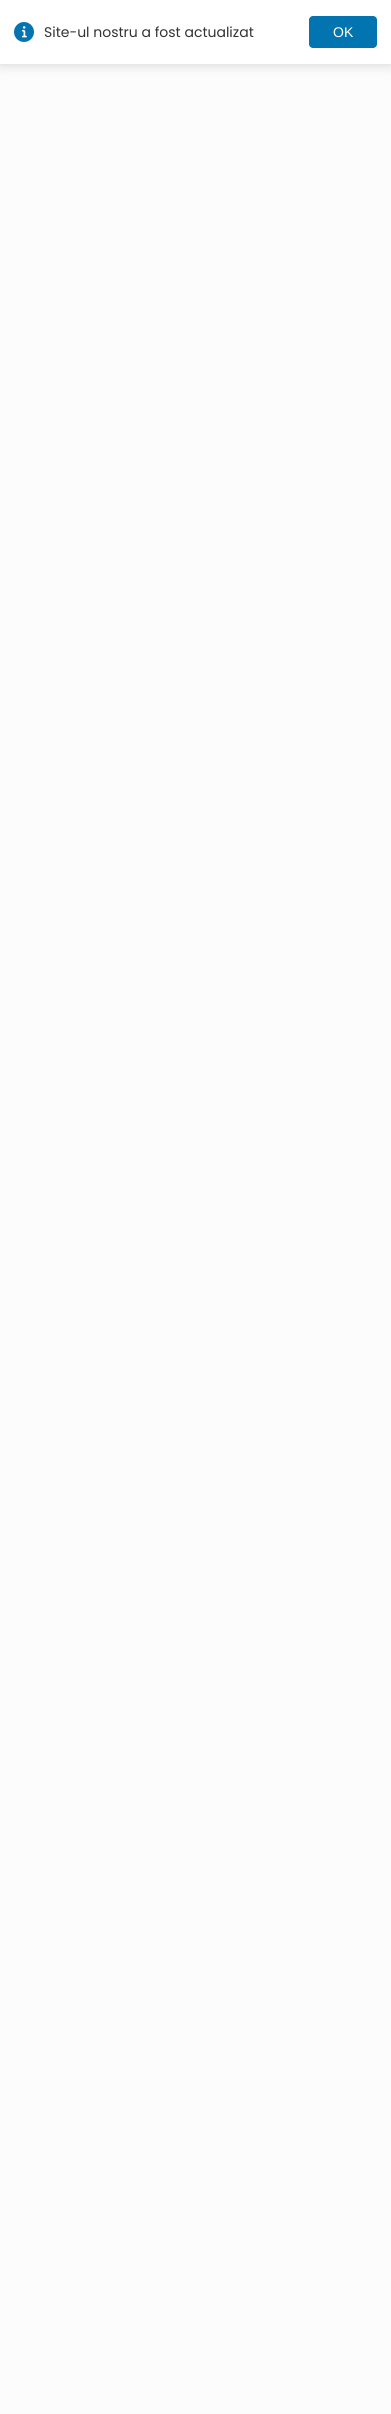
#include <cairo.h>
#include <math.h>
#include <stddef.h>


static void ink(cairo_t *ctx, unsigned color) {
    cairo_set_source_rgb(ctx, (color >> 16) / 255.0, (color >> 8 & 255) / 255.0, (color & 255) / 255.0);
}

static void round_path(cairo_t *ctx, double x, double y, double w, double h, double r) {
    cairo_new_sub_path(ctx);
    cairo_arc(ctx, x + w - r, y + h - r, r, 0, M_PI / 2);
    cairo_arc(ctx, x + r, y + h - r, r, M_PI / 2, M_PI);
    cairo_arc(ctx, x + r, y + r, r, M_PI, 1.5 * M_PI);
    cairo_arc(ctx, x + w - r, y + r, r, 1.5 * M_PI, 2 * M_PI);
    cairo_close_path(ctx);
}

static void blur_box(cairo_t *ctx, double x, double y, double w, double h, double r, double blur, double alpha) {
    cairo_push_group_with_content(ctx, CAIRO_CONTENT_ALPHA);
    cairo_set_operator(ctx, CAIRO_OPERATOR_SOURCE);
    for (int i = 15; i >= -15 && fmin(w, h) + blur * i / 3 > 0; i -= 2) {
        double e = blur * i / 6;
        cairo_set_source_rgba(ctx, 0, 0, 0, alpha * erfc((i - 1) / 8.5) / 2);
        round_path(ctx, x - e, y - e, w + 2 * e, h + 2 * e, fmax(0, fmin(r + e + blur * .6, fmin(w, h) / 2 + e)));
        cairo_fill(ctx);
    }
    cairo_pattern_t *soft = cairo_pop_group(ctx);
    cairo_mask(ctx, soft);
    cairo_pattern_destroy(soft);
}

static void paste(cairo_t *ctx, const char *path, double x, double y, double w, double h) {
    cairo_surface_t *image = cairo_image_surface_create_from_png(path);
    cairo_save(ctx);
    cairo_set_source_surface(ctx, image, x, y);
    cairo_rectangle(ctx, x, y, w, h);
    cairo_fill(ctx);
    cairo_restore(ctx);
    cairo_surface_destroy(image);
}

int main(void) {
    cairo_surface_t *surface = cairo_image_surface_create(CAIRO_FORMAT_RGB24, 391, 2414);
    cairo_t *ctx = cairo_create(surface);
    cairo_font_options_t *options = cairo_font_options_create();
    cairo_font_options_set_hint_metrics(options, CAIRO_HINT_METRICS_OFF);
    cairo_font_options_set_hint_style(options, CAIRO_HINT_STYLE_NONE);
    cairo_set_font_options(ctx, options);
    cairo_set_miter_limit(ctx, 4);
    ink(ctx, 0xFCFCFC);
    cairo_paint(ctx);
    ink(ctx, 0x000000);
    blur_box(ctx, 0, 2, 391, 64, 0, 7.5, 0.05);
    blur_box(ctx, 0, 1, 391, 64, 0, 5, 0.1);
    ink(ctx, 0xFFFFFF);
    cairo_rectangle(ctx, 0, 0, 391, 64);
    cairo_fill(ctx);
    paste(ctx, "media/1.png", 14, 22, 20, 20);
    cairo_select_font_face(ctx, "Poppins", CAIRO_FONT_SLANT_NORMAL, CAIRO_FONT_WEIGHT_NORMAL);
    cairo_set_font_size(ctx, 14);
    ink(ctx, 0x333333);
    cairo_move_to(ctx, 44, 37);
    cairo_show_text(ctx, "Site-ul nostru a fost actualizat");
    ink(ctx, 0x0275B1);
    round_path(ctx, 309, 16, 68, 32, 4);
    cairo_fill(ctx);
    cairo_select_font_face(ctx, "Liberation Sans", CAIRO_FONT_SLANT_NORMAL, CAIRO_FONT_WEIGHT_NORMAL);
    ink(ctx, 0xFFFFFF);
    cairo_move_to(ctx, 333, 37);
    cairo_show_text(ctx, "OK");
    cairo_surface_write_to_png(surface, "image.png");
    cairo_font_options_destroy(options);
    cairo_destroy(ctx);
    cairo_surface_destroy(surface);
    return 0;
}
